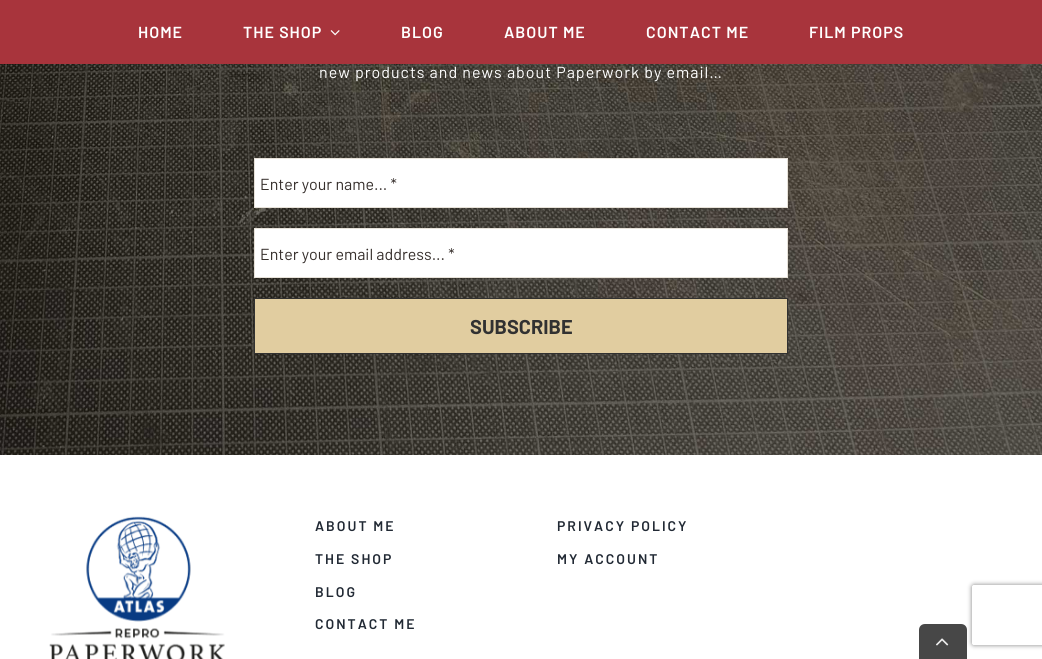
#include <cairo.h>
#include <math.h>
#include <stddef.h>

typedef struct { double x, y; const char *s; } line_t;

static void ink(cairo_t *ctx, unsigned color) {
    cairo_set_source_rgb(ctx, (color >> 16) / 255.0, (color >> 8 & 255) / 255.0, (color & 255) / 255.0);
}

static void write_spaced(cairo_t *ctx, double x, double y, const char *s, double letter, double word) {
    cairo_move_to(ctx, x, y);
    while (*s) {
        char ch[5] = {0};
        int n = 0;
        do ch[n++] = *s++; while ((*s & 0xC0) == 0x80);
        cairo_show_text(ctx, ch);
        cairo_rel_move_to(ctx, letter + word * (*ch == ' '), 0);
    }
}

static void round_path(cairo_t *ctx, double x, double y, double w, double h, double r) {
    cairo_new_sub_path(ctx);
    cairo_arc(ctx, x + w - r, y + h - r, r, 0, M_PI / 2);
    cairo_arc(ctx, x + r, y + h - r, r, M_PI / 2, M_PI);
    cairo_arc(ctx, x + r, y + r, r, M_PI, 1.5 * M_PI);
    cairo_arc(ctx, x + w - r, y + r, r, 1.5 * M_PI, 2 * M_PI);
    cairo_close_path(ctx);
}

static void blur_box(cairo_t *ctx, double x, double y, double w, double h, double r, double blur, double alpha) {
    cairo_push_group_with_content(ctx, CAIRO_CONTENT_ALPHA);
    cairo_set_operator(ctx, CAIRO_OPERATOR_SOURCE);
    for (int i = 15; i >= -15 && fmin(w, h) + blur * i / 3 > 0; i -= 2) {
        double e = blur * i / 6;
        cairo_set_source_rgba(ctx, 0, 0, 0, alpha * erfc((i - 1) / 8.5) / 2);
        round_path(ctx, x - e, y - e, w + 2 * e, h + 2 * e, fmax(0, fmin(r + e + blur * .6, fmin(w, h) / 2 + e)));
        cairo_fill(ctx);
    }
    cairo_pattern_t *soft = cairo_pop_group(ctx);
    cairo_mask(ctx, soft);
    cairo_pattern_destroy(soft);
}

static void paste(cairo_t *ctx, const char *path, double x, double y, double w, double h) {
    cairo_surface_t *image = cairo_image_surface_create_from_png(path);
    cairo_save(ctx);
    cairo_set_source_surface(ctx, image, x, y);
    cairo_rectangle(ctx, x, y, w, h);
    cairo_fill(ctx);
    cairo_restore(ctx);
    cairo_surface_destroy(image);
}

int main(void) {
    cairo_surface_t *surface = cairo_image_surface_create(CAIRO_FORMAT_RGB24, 1042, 659);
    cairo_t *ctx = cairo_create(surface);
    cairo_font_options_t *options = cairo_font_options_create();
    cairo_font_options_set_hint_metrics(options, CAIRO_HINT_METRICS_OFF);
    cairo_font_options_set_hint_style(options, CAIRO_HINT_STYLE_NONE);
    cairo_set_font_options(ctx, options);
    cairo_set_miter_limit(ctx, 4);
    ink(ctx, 0xFFFFFF);
    cairo_paint(ctx);
    ink(ctx, 0xA8343C);
    cairo_rectangle(ctx, 0, 0, 1042, 64);
    cairo_fill(ctx);
    cairo_select_font_face(ctx, "Barlow SemiBold", CAIRO_FONT_SLANT_NORMAL, CAIRO_FONT_WEIGHT_NORMAL);
    cairo_set_font_size(ctx, 16);
    ink(ctx, 0xFFFFFF);
    write_spaced(ctx, 138, 38, "HOME", 1, 0);
    write_spaced(ctx, 243, 38, "THE SHOP", 1, 0);
    paste(ctx, "media/1.png", 330, 30, 10, 6);
    {
        static const line_t items[] = {
            {401, 38, "BLOG"},
            {504, 38, "ABOUT ME"},
            {646, 38, "CONTACT ME"},
            {809, 38, "FILM PROPS"},
        };
        for (size_t i = 0; i < sizeof items / sizeof *items; i++) {
            write_spaced(ctx, items[i].x, items[i].y, items[i].s, 1, 0);
        }
    }
    paste(ctx, "media/2.png", 0, 64, 1042, 391);
    cairo_select_font_face(ctx, "Barlow", CAIRO_FONT_SLANT_NORMAL, CAIRO_FONT_WEIGHT_NORMAL);
    write_spaced(ctx, 319, 78, "new products and news about Paperwork by email…", 1, 0);
    cairo_rectangle(ctx, 254.5, 158.5, 533, 49);
    cairo_fill_preserve(ctx);
    ink(ctx, 0xE7E2D9);
    cairo_set_line_width(ctx, 1);
    cairo_stroke(ctx);
    ink(ctx, 0x352E2B);
    cairo_move_to(ctx, 260, 190);
    cairo_show_text(ctx, "Enter your name... *");
    ink(ctx, 0xFFFFFF);
    cairo_rectangle(ctx, 254.5, 228.5, 533, 49);
    cairo_fill_preserve(ctx);
    ink(ctx, 0xE7E2D9);
    cairo_stroke(ctx);
    ink(ctx, 0x352E2B);
    cairo_move_to(ctx, 260, 260);
    cairo_show_text(ctx, "Enter your email address... *");
    ink(ctx, 0xE1CDA0);
    cairo_rectangle(ctx, 254.5, 298.5, 533, 55);
    cairo_fill_preserve(ctx);
    ink(ctx, 0x313131);
    cairo_stroke(ctx);
    cairo_select_font_face(ctx, "Barlow", CAIRO_FONT_SLANT_NORMAL, CAIRO_FONT_WEIGHT_BOLD);
    cairo_set_font_size(ctx, 20);
    cairo_move_to(ctx, 470, 334);
    cairo_show_text(ctx, "SUBSCRIBE");
    paste(ctx, "media/3.png", 49, 516, 176, 143);
    cairo_select_font_face(ctx, "Barlow SemiBold", CAIRO_FONT_SLANT_NORMAL, CAIRO_FONT_WEIGHT_NORMAL);
    cairo_set_font_size(ctx, 14);
    ink(ctx, 0x212934);
    {
        static const line_t items[] = {
            {315, 531, "ABOUT ME"},
            {315, 564, "THE SHOP"},
            {315, 597, "BLOG"},
            {315, 629, "CONTACT ME"},
            {557, 531, "PRIVACY POLICY"},
            {557, 564, "MY ACCOUNT"},
        };
        for (size_t i = 0; i < sizeof items / sizeof *items; i++) {
            write_spaced(ctx, items[i].x, items[i].y, items[i].s, 2, 0);
        }
    }
    cairo_save(ctx);
    cairo_set_fill_rule(ctx, CAIRO_FILL_RULE_EVEN_ODD);
    cairo_new_path(ctx);
    cairo_move_to(ctx, 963, 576);
    cairo_line_to(ctx, 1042, 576);
    cairo_line_to(ctx, 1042, 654);
    cairo_line_to(ctx, 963, 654);
    cairo_close_path(ctx);
    cairo_move_to(ctx, 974, 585);
    cairo_line_to(ctx, 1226, 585);
    cairo_curve_to(ctx, 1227, 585, 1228, 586, 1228, 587);
    cairo_line_to(ctx, 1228, 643);
    cairo_curve_to(ctx, 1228, 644, 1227, 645, 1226, 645);
    cairo_line_to(ctx, 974, 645);
    cairo_curve_to(ctx, 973, 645, 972, 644, 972, 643);
    cairo_line_to(ctx, 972, 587);
    cairo_curve_to(ctx, 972, 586, 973, 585, 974, 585);
    cairo_close_path(ctx);
    cairo_clip(ctx);
    ink(ctx, 0x808080);
    blur_box(ctx, 972, 585, 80, 60, 2, 2.5, 1);
    cairo_restore(ctx);
    ink(ctx, 0x474747);
    cairo_new_path(ctx);
    cairo_move_to(ctx, 925, 624);
    cairo_line_to(ctx, 961, 624);
    cairo_curve_to(ctx, 964.5, 624, 967, 626.5, 967, 630);
    cairo_line_to(ctx, 967, 659);
    cairo_line_to(ctx, 919, 659);
    cairo_line_to(ctx, 919, 630);
    cairo_curve_to(ctx, 919, 626.5, 921.5, 624, 925, 624);
    cairo_close_path(ctx);
    cairo_fill(ctx);
    paste(ctx, "media/4.png", 936, 638, 13, 8);
    cairo_surface_write_to_png(surface, "image.png");
    cairo_font_options_destroy(options);
    cairo_destroy(ctx);
    cairo_surface_destroy(surface);
    return 0;
}
